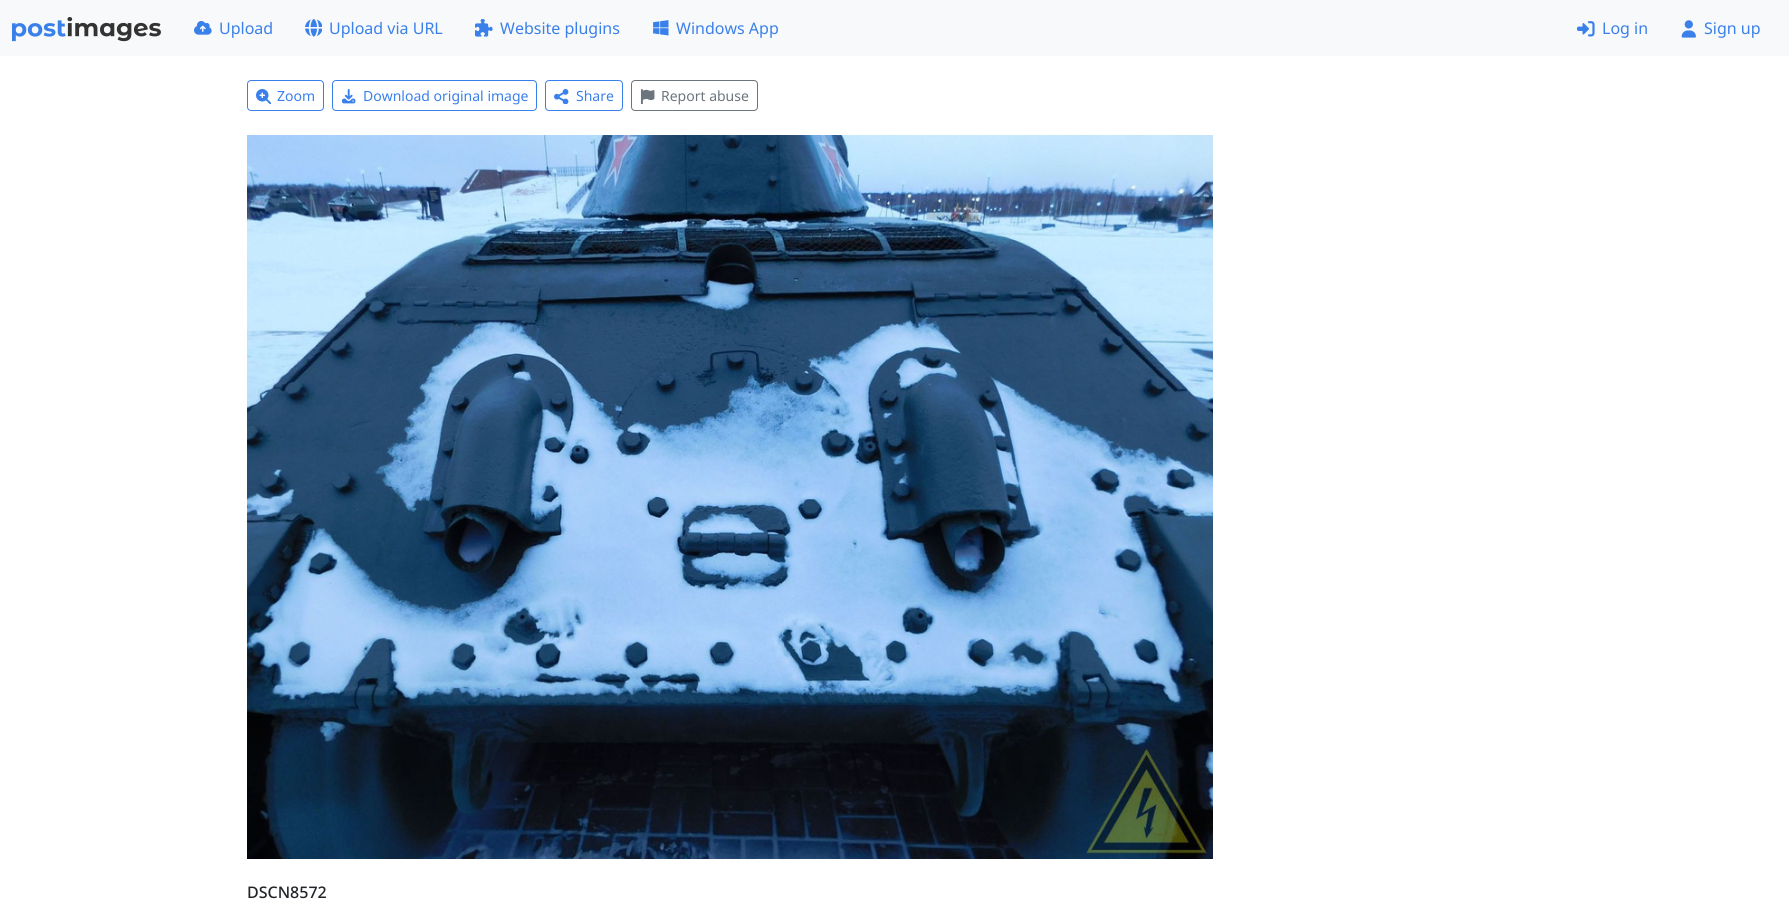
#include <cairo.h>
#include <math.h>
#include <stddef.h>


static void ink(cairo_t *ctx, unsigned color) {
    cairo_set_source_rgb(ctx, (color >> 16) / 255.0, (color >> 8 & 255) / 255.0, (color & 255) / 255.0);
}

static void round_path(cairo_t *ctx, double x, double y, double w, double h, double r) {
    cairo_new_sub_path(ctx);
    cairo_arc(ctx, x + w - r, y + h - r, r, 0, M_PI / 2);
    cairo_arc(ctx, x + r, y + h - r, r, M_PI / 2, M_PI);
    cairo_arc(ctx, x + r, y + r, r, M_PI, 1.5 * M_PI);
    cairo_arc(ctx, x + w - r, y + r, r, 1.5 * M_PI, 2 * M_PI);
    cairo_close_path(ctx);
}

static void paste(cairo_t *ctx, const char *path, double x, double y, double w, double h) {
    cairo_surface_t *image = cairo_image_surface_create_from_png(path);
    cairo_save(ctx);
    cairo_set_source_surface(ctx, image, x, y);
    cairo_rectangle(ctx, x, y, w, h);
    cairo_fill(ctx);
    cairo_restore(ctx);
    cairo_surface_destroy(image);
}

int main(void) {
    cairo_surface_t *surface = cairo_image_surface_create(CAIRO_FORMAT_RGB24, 1789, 914);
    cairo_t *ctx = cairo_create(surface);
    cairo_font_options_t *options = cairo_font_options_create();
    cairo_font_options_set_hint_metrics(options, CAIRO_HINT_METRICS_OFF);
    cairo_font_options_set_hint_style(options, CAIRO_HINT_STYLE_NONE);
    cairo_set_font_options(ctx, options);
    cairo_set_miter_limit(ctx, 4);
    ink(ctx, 0xFFFFFF);
    cairo_paint(ctx);
    ink(ctx, 0xF8F9FA);
    cairo_rectangle(ctx, 0, 0, 1789, 56);
    cairo_fill(ctx);
    paste(ctx, "media/1.png", 12, 17, 149, 25);
    paste(ctx, "media/2.png", 194, 21, 18, 14);
    cairo_select_font_face(ctx, "Noto Sans", CAIRO_FONT_SLANT_NORMAL, CAIRO_FONT_WEIGHT_NORMAL);
    cairo_set_font_size(ctx, 16);
    ink(ctx, 0x3A80EA);
    cairo_move_to(ctx, 219, 34);
    cairo_show_text(ctx, "Upload");
    paste(ctx, "media/3.png", 305, 19, 17, 18);
    cairo_move_to(ctx, 329, 34);
    cairo_show_text(ctx, "Upload via URL");
    paste(ctx, "media/4.png", 475, 19, 18, 18);
    cairo_move_to(ctx, 500, 34);
    cairo_show_text(ctx, "Website plugins");
    paste(ctx, "media/5.png", 653, 20, 16, 16);
    cairo_move_to(ctx, 676, 34);
    cairo_show_text(ctx, "Windows App");
    paste(ctx, "media/6.png", 1577, 21, 18, 16);
    cairo_move_to(ctx, 1602, 34);
    cairo_show_text(ctx, "Log in");
    paste(ctx, "media/7.png", 1681, 20, 15, 18);
    cairo_move_to(ctx, 1704, 34);
    cairo_show_text(ctx, "Sign up");
    round_path(ctx, 247.5, 80.5, 76, 30, 3.5);
    cairo_set_line_width(ctx, 1);
    cairo_stroke(ctx);
    paste(ctx, "media/8.png", 256, 89, 15, 15);
    cairo_set_font_size(ctx, 14);
    cairo_move_to(ctx, 277, 101);
    cairo_show_text(ctx, "Zoom");
    round_path(ctx, 332.5, 80.5, 204, 30, 3.5);
    cairo_stroke(ctx);
    paste(ctx, "media/9.png", 341, 89, 15, 15);
    cairo_move_to(ctx, 363, 101);
    cairo_show_text(ctx, "Download original image");
    round_path(ctx, 545.5, 80.5, 77, 30, 3.5);
    cairo_stroke(ctx);
    paste(ctx, "media/10.png", 554, 89, 15, 15);
    cairo_move_to(ctx, 576, 101);
    cairo_show_text(ctx, "Share");
    round_path(ctx, 631.5, 80.5, 126, 30, 3.5);
    ink(ctx, 0x6C757D);
    cairo_stroke(ctx);
    paste(ctx, "media/11.png", 640, 89, 15, 15);
    cairo_move_to(ctx, 661, 101);
    cairo_show_text(ctx, "Report abuse");
    paste(ctx, "media/12.png", 247, 135, 966, 724);
    cairo_select_font_face(ctx, "Noto Sans Medium", CAIRO_FONT_SLANT_NORMAL, CAIRO_FONT_WEIGHT_NORMAL);
    cairo_set_font_size(ctx, 16);
    ink(ctx, 0x212529);
    cairo_move_to(ctx, 247, 898);
    cairo_show_text(ctx, "DSCN8572");
    cairo_surface_write_to_png(surface, "image.png");
    cairo_font_options_destroy(options);
    cairo_destroy(ctx);
    cairo_surface_destroy(surface);
    return 0;
}
